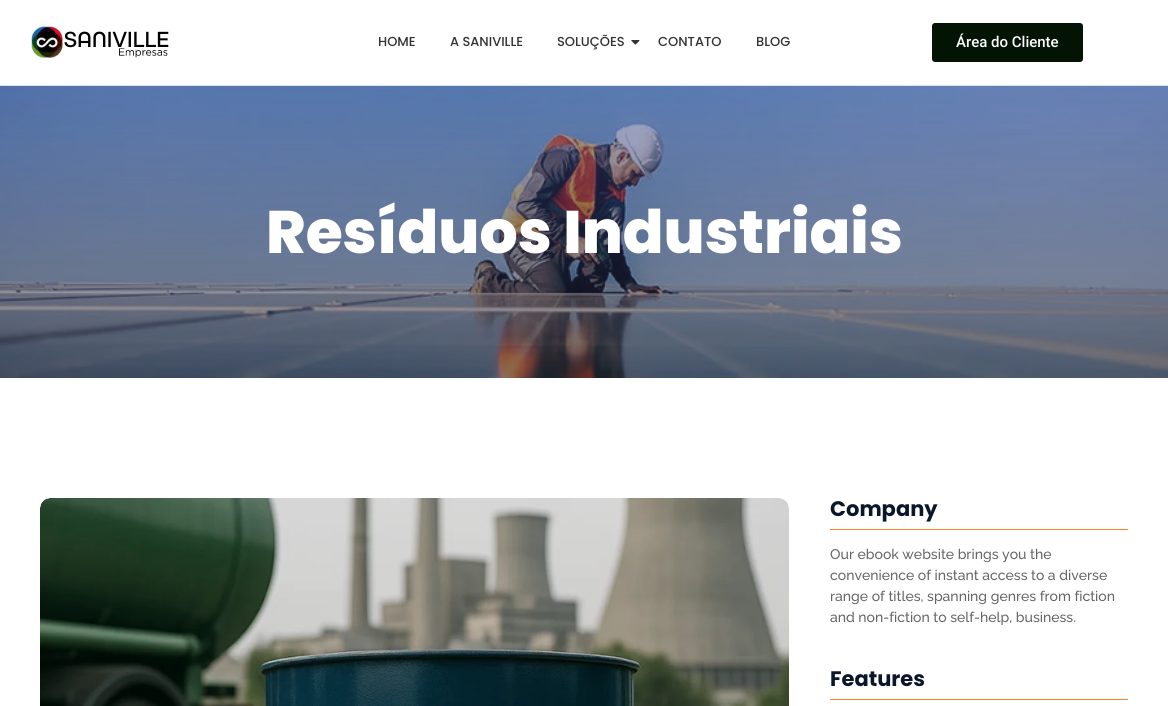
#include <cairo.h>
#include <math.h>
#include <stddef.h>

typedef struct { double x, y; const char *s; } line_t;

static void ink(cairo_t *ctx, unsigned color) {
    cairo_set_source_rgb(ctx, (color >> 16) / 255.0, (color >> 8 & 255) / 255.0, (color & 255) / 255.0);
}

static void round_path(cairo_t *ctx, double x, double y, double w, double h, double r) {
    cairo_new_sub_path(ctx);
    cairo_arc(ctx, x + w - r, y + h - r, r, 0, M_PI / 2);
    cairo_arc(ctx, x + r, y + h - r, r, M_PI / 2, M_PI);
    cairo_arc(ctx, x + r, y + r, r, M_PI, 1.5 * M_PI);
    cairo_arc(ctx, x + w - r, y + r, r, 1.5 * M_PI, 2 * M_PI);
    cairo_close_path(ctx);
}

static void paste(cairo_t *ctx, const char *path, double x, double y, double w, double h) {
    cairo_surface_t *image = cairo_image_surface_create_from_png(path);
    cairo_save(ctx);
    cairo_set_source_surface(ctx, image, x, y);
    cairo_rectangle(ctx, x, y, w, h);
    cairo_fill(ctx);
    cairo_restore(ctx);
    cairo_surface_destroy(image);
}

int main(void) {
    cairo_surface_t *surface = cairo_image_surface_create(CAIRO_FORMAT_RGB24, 1168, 706);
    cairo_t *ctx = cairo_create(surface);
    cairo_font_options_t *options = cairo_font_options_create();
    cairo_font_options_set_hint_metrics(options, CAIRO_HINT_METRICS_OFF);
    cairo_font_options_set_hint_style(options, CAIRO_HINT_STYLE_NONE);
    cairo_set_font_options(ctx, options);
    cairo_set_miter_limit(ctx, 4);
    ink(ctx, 0xFFFFFF);
    cairo_paint(ctx);
    ink(ctx, 0xD8E4F0);
    cairo_rectangle(ctx, 0, 85, 1168, 1);
    cairo_fill(ctx);
    paste(ctx, "media/1.png", 31, 26, 138, 32);
    cairo_select_font_face(ctx, "Poppins Medium", CAIRO_FONT_SLANT_NORMAL, CAIRO_FONT_WEIGHT_NORMAL);
    cairo_set_font_size(ctx, 13);
    ink(ctx, 0x333333);
    {
        static const line_t items[] = {
            {378, 46, "HOME"},
            {450, 46, "A SANIVILLE"},
            {557, 46, "SOLUÇÕES"},
        };
        for (size_t i = 0; i < sizeof items / sizeof *items; i++) {
            cairo_move_to(ctx, items[i].x, items[i].y);
            cairo_show_text(ctx, items[i].s);
        }
    }
    paste(ctx, "media/2.png", 631, 40, 9, 5);
    cairo_move_to(ctx, 658, 46);
    cairo_show_text(ctx, "CONTATO");
    cairo_move_to(ctx, 756, 46);
    cairo_show_text(ctx, "BLOG");
    ink(ctx, 0x031405);
    round_path(ctx, 932, 23, 151, 39, 3);
    cairo_fill(ctx);
    cairo_select_font_face(ctx, "Roboto Medium", CAIRO_FONT_SLANT_NORMAL, CAIRO_FONT_WEIGHT_NORMAL);
    cairo_set_font_size(ctx, 15);
    ink(ctx, 0xFFFFFF);
    cairo_move_to(ctx, 956, 47);
    cairo_show_text(ctx, "Área do Cliente");
    paste(ctx, "media/3.png", 0, 86, 1168, 292);
    cairo_select_font_face(ctx, "Poppins ExtraBold", CAIRO_FONT_SLANT_NORMAL, CAIRO_FONT_WEIGHT_NORMAL);
    cairo_set_font_size(ctx, 60);
    cairo_move_to(ctx, 266, 253);
    cairo_show_text(ctx, "Resíduos Industriais");
    paste(ctx, "media/4.png", 40, 498, 749, 208);
    cairo_select_font_face(ctx, "Poppins", CAIRO_FONT_SLANT_NORMAL, CAIRO_FONT_WEIGHT_BOLD);
    cairo_set_font_size(ctx, 21);
    ink(ctx, 0x0A172A);
    cairo_move_to(ctx, 830, 516);
    cairo_show_text(ctx, "Company");
    ink(ctx, 0xFD8127);
    cairo_rectangle(ctx, 830, 529, 298, 1);
    cairo_fill(ctx);
    cairo_select_font_face(ctx, "Raleway Medium", CAIRO_FONT_SLANT_NORMAL, CAIRO_FONT_WEIGHT_NORMAL);
    cairo_set_font_size(ctx, 14);
    ink(ctx, 0x666666);
    {
        static const line_t items[] = {
            {830, 559, "Our ebook website brings you the"},
            {830, 580, "convenience of instant access to a diverse"},
            {830, 601, "range of titles, spanning genres from fiction"},
            {830, 622, "and non-fiction to self-help, business."},
        };
        for (size_t i = 0; i < sizeof items / sizeof *items; i++) {
            cairo_move_to(ctx, items[i].x, items[i].y);
            cairo_show_text(ctx, items[i].s);
        }
    }
    cairo_select_font_face(ctx, "Poppins", CAIRO_FONT_SLANT_NORMAL, CAIRO_FONT_WEIGHT_BOLD);
    cairo_set_font_size(ctx, 21);
    ink(ctx, 0x0A172A);
    cairo_move_to(ctx, 830, 686);
    cairo_show_text(ctx, "Features");
    ink(ctx, 0xFD8127);
    cairo_rectangle(ctx, 830, 699, 298, 1);
    cairo_fill(ctx);
    cairo_surface_write_to_png(surface, "image.png");
    cairo_font_options_destroy(options);
    cairo_destroy(ctx);
    cairo_surface_destroy(surface);
    return 0;
}
